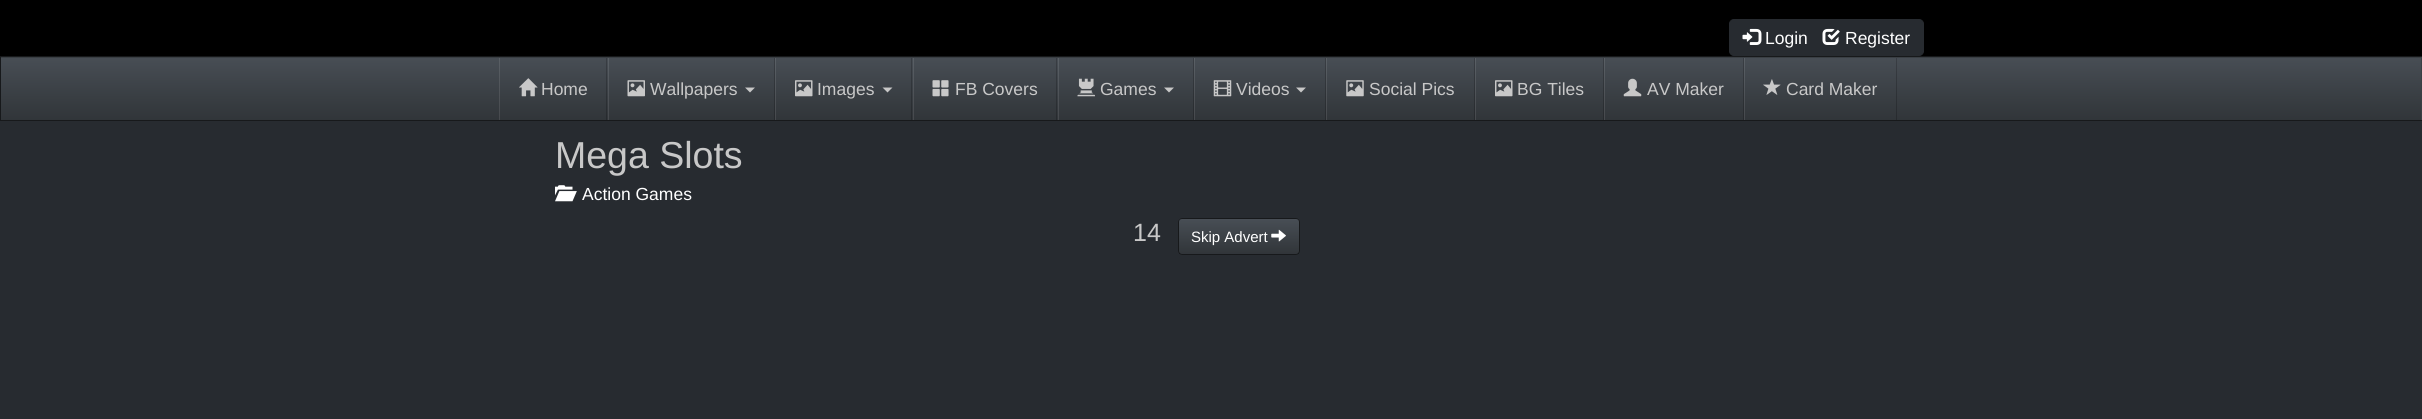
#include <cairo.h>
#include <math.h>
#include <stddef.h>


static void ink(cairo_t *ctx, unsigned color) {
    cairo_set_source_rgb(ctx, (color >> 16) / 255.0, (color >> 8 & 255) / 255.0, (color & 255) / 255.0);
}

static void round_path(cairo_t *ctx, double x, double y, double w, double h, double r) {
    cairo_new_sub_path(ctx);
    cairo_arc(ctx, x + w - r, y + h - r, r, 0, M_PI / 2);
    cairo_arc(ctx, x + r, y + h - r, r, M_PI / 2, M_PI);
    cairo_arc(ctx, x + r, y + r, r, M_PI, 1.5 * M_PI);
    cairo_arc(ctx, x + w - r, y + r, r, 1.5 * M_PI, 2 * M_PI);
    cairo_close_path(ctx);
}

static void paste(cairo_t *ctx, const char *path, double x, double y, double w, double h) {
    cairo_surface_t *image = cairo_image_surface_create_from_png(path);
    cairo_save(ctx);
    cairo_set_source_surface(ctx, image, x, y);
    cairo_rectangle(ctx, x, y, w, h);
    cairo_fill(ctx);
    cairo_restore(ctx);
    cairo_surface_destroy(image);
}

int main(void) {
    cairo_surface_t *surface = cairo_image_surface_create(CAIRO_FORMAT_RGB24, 2422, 419);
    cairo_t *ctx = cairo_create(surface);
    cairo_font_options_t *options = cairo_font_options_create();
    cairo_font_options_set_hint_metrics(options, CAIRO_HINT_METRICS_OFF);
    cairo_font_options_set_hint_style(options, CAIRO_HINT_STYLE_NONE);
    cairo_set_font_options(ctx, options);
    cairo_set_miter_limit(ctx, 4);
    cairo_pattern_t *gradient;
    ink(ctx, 0x272B30);
    cairo_paint(ctx);
    ink(ctx, 0x000000);
    cairo_rectangle(ctx, 0, 0, 2422, 56);
    cairo_fill(ctx);
    ink(ctx, 0x272B30);
    round_path(ctx, 1729.5, 19.5, 194, 36, 4.5);
    cairo_fill_preserve(ctx);
    cairo_set_line_width(ctx, 1);
    cairo_stroke(ctx);
    paste(ctx, "media/1.png", 1742, 28, 20, 17);
    cairo_select_font_face(ctx, "Liberation Sans", CAIRO_FONT_SLANT_NORMAL, CAIRO_FONT_WEIGHT_NORMAL);
    cairo_set_font_size(ctx, 17.5);
    ink(ctx, 0xFFFFFF);
    cairo_move_to(ctx, 1765, 44);
    cairo_show_text(ctx, "Login");
    paste(ctx, "media/2.png", 1822, 28, 18, 17);
    cairo_move_to(ctx, 1845, 44);
    cairo_show_text(ctx, "Register");
    ink(ctx, 0x3A3F44);
    cairo_rectangle(ctx, 1, 57, 2421, 63);
    cairo_fill(ctx);
    gradient = cairo_pattern_create_linear(1211, 57, 1211, 120);
    cairo_pattern_add_color_stop_rgba(gradient, 0, 0.282, 0.306, 0.333, 1);
    cairo_pattern_add_color_stop_rgba(gradient, 0.6, 0.227, 0.247, 0.267, 1);
    cairo_pattern_add_color_stop_rgba(gradient, 1, 0.192, 0.208, 0.224, 1);
    cairo_set_source(ctx, gradient);
    cairo_pattern_destroy(gradient);
    cairo_rectangle(ctx, 1, 58, 2420, 62);
    cairo_fill(ctx);
    gradient = cairo_pattern_create_linear(1211, 57, 1211, 120);
    cairo_pattern_add_color_stop_rgba(gradient, 0, 0.353, 0.376, 0.4, 1);
    cairo_pattern_add_color_stop_rgba(gradient, 0.6, 0.306, 0.322, 0.341, 1);
    cairo_pattern_add_color_stop_rgba(gradient, 1, 0.275, 0.286, 0.302, 1);
    cairo_set_source(ctx, gradient);
    cairo_pattern_destroy(gradient);
    cairo_rectangle(ctx, 1744, 58, 1, 62);
    cairo_fill(ctx);
    gradient = cairo_pattern_create_linear(1211, 57, 1211, 120);
    cairo_pattern_add_color_stop_rgba(gradient, 0, 0.227, 0.243, 0.267, 1);
    cairo_pattern_add_color_stop_rgba(gradient, 0.6, 0.18, 0.196, 0.212, 1);
    cairo_pattern_add_color_stop_rgba(gradient, 1, 0.153, 0.165, 0.18, 1);
    cairo_set_source(ctx, gradient);
    cairo_pattern_destroy(gradient);
    cairo_rectangle(ctx, 1896, 58, 1, 62);
    cairo_fill(ctx);
    gradient = cairo_pattern_create_linear(1211, 57, 1211, 120);
    cairo_pattern_add_color_stop_rgba(gradient, 0, 0.353, 0.376, 0.4, 1);
    cairo_pattern_add_color_stop_rgba(gradient, 0.6, 0.306, 0.322, 0.341, 1);
    cairo_pattern_add_color_stop_rgba(gradient, 1, 0.275, 0.286, 0.302, 1);
    cairo_set_source(ctx, gradient);
    cairo_pattern_destroy(gradient);
    cairo_rectangle(ctx, 1604, 58, 1, 62);
    cairo_fill(ctx);
    gradient = cairo_pattern_create_linear(1211, 57, 1211, 120);
    cairo_pattern_add_color_stop_rgba(gradient, 0, 0.227, 0.243, 0.267, 1);
    cairo_pattern_add_color_stop_rgba(gradient, 0.6, 0.18, 0.196, 0.212, 1);
    cairo_pattern_add_color_stop_rgba(gradient, 1, 0.153, 0.165, 0.18, 1);
    cairo_set_source(ctx, gradient);
    cairo_pattern_destroy(gradient);
    cairo_rectangle(ctx, 1743, 58, 1, 62);
    cairo_fill(ctx);
    gradient = cairo_pattern_create_linear(1211, 57, 1211, 120);
    cairo_pattern_add_color_stop_rgba(gradient, 0, 0.353, 0.376, 0.4, 1);
    cairo_pattern_add_color_stop_rgba(gradient, 0.6, 0.306, 0.322, 0.341, 1);
    cairo_pattern_add_color_stop_rgba(gradient, 1, 0.275, 0.286, 0.302, 1);
    cairo_set_source(ctx, gradient);
    cairo_pattern_destroy(gradient);
    cairo_rectangle(ctx, 1475, 58, 1, 62);
    cairo_fill(ctx);
    gradient = cairo_pattern_create_linear(1211, 57, 1211, 120);
    cairo_pattern_add_color_stop_rgba(gradient, 0, 0.227, 0.243, 0.267, 1);
    cairo_pattern_add_color_stop_rgba(gradient, 0.6, 0.18, 0.196, 0.212, 1);
    cairo_pattern_add_color_stop_rgba(gradient, 1, 0.153, 0.165, 0.18, 1);
    cairo_set_source(ctx, gradient);
    cairo_pattern_destroy(gradient);
    cairo_rectangle(ctx, 1603, 58, 1, 62);
    cairo_fill(ctx);
    gradient = cairo_pattern_create_linear(1211, 57, 1211, 120);
    cairo_pattern_add_color_stop_rgba(gradient, 0, 0.353, 0.376, 0.4, 1);
    cairo_pattern_add_color_stop_rgba(gradient, 0.6, 0.306, 0.322, 0.341, 1);
    cairo_pattern_add_color_stop_rgba(gradient, 1, 0.275, 0.286, 0.302, 1);
    cairo_set_source(ctx, gradient);
    cairo_pattern_destroy(gradient);
    cairo_rectangle(ctx, 1326, 58, 1, 62);
    cairo_fill(ctx);
    gradient = cairo_pattern_create_linear(1211, 57, 1211, 120);
    cairo_pattern_add_color_stop_rgba(gradient, 0, 0.227, 0.243, 0.267, 1);
    cairo_pattern_add_color_stop_rgba(gradient, 0.6, 0.18, 0.196, 0.212, 1);
    cairo_pattern_add_color_stop_rgba(gradient, 1, 0.153, 0.165, 0.18, 1);
    cairo_set_source(ctx, gradient);
    cairo_pattern_destroy(gradient);
    cairo_rectangle(ctx, 1474, 58, 1, 62);
    cairo_fill(ctx);
    gradient = cairo_pattern_create_linear(1211, 57, 1211, 120);
    cairo_pattern_add_color_stop_rgba(gradient, 0, 0.353, 0.376, 0.4, 1);
    cairo_pattern_add_color_stop_rgba(gradient, 0.6, 0.306, 0.322, 0.341, 1);
    cairo_pattern_add_color_stop_rgba(gradient, 1, 0.275, 0.286, 0.302, 1);
    cairo_set_source(ctx, gradient);
    cairo_pattern_destroy(gradient);
    cairo_rectangle(ctx, 1194, 58, 1, 62);
    cairo_fill(ctx);
    gradient = cairo_pattern_create_linear(1211, 57, 1211, 120);
    cairo_pattern_add_color_stop_rgba(gradient, 0, 0.227, 0.243, 0.267, 1);
    cairo_pattern_add_color_stop_rgba(gradient, 0.6, 0.18, 0.196, 0.212, 1);
    cairo_pattern_add_color_stop_rgba(gradient, 1, 0.153, 0.165, 0.18, 1);
    cairo_set_source(ctx, gradient);
    cairo_pattern_destroy(gradient);
    cairo_rectangle(ctx, 1325, 58, 1, 62);
    cairo_fill(ctx);
    gradient = cairo_pattern_create_linear(1211, 57, 1211, 120);
    cairo_pattern_add_color_stop_rgba(gradient, 0, 0.353, 0.376, 0.4, 1);
    cairo_pattern_add_color_stop_rgba(gradient, 0.6, 0.306, 0.322, 0.341, 1);
    cairo_pattern_add_color_stop_rgba(gradient, 1, 0.275, 0.286, 0.302, 1);
    cairo_set_source(ctx, gradient);
    cairo_pattern_destroy(gradient);
    cairo_rectangle(ctx, 1058, 58, 1, 62);
    cairo_fill(ctx);
    gradient = cairo_pattern_create_linear(1211, 57, 1211, 120);
    cairo_pattern_add_color_stop_rgba(gradient, 0, 0.227, 0.243, 0.267, 1);
    cairo_pattern_add_color_stop_rgba(gradient, 0.6, 0.18, 0.196, 0.212, 1);
    cairo_pattern_add_color_stop_rgba(gradient, 1, 0.153, 0.165, 0.18, 1);
    cairo_set_source(ctx, gradient);
    cairo_pattern_destroy(gradient);
    cairo_rectangle(ctx, 1193, 58, 1, 62);
    cairo_fill(ctx);
    gradient = cairo_pattern_create_linear(1211, 57, 1211, 120);
    cairo_pattern_add_color_stop_rgba(gradient, 0, 0.353, 0.376, 0.4, 1);
    cairo_pattern_add_color_stop_rgba(gradient, 0.6, 0.306, 0.322, 0.341, 1);
    cairo_pattern_add_color_stop_rgba(gradient, 1, 0.275, 0.286, 0.302, 1);
    cairo_set_source(ctx, gradient);
    cairo_pattern_destroy(gradient);
    cairo_rectangle(ctx, 913, 58, 1, 62);
    cairo_fill(ctx);
    gradient = cairo_pattern_create_linear(1211, 57, 1211, 120);
    cairo_pattern_add_color_stop_rgba(gradient, 0, 0.227, 0.243, 0.267, 1);
    cairo_pattern_add_color_stop_rgba(gradient, 0.6, 0.18, 0.196, 0.212, 1);
    cairo_pattern_add_color_stop_rgba(gradient, 1, 0.153, 0.165, 0.18, 1);
    cairo_set_source(ctx, gradient);
    cairo_pattern_destroy(gradient);
    cairo_rectangle(ctx, 1056, 58, 1, 62);
    cairo_fill(ctx);
    gradient = cairo_pattern_create_linear(1211, 57, 1211, 120);
    cairo_pattern_add_color_stop_rgba(gradient, 0, 0.353, 0.376, 0.4, 1);
    cairo_pattern_add_color_stop_rgba(gradient, 0.6, 0.306, 0.322, 0.341, 1);
    cairo_pattern_add_color_stop_rgba(gradient, 1, 0.275, 0.286, 0.302, 1);
    cairo_set_source(ctx, gradient);
    cairo_pattern_destroy(gradient);
    cairo_rectangle(ctx, 775, 58, 1, 62);
    cairo_fill(ctx);
    gradient = cairo_pattern_create_linear(1211, 57, 1211, 120);
    cairo_pattern_add_color_stop_rgba(gradient, 0, 0.227, 0.243, 0.267, 1);
    cairo_pattern_add_color_stop_rgba(gradient, 0.6, 0.18, 0.196, 0.212, 1);
    cairo_pattern_add_color_stop_rgba(gradient, 1, 0.153, 0.165, 0.18, 1);
    cairo_set_source(ctx, gradient);
    cairo_pattern_destroy(gradient);
    cairo_rectangle(ctx, 911, 58, 1, 62);
    cairo_fill(ctx);
    gradient = cairo_pattern_create_linear(1211, 57, 1211, 120);
    cairo_pattern_add_color_stop_rgba(gradient, 0, 0.353, 0.376, 0.4, 1);
    cairo_pattern_add_color_stop_rgba(gradient, 0.6, 0.306, 0.322, 0.341, 1);
    cairo_pattern_add_color_stop_rgba(gradient, 1, 0.275, 0.286, 0.302, 1);
    cairo_set_source(ctx, gradient);
    cairo_pattern_destroy(gradient);
    cairo_rectangle(ctx, 608, 58, 1, 62);
    cairo_fill(ctx);
    gradient = cairo_pattern_create_linear(1211, 57, 1211, 120);
    cairo_pattern_add_color_stop_rgba(gradient, 0, 0.227, 0.243, 0.267, 1);
    cairo_pattern_add_color_stop_rgba(gradient, 0.6, 0.18, 0.196, 0.212, 1);
    cairo_pattern_add_color_stop_rgba(gradient, 1, 0.153, 0.165, 0.18, 1);
    cairo_set_source(ctx, gradient);
    cairo_pattern_destroy(gradient);
    cairo_rectangle(ctx, 774, 58, 1, 62);
    cairo_fill(ctx);
    gradient = cairo_pattern_create_linear(1211, 57, 1211, 120);
    cairo_pattern_add_color_stop_rgba(gradient, 0, 0.353, 0.376, 0.4, 1);
    cairo_pattern_add_color_stop_rgba(gradient, 0.6, 0.306, 0.322, 0.341, 1);
    cairo_pattern_add_color_stop_rgba(gradient, 1, 0.275, 0.286, 0.302, 1);
    cairo_set_source(ctx, gradient);
    cairo_pattern_destroy(gradient);
    cairo_rectangle(ctx, 499, 58, 1, 62);
    cairo_fill(ctx);
    gradient = cairo_pattern_create_linear(1211, 57, 1211, 120);
    cairo_pattern_add_color_stop_rgba(gradient, 0, 0.227, 0.243, 0.267, 1);
    cairo_pattern_add_color_stop_rgba(gradient, 0.6, 0.18, 0.196, 0.212, 1);
    cairo_pattern_add_color_stop_rgba(gradient, 1, 0.153, 0.165, 0.18, 1);
    cairo_set_source(ctx, gradient);
    cairo_pattern_destroy(gradient);
    cairo_rectangle(ctx, 606, 58, 1, 62);
    cairo_fill(ctx);
    cairo_rectangle(ctx, 0.5, 56.5, 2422, 64);
    ink(ctx, 0x17191B);
    cairo_stroke(ctx);
    paste(ctx, "media/3.png", 519, 78, 19, 19);
    ink(ctx, 0xC8C8C8);
    cairo_move_to(ctx, 541, 95);
    cairo_show_text(ctx, "Home");
    paste(ctx, "media/4.png", 627, 80, 18, 17);
    cairo_move_to(ctx, 650, 95);
    cairo_show_text(ctx, "Wallpapers");
    cairo_new_path(ctx);
    cairo_move_to(ctx, 745, 87.5);
    cairo_line_to(ctx, 755, 87.5);
    cairo_line_to(ctx, 750, 92.5);
    cairo_close_path(ctx);
    cairo_fill(ctx);
    paste(ctx, "media/5.png", 795, 80, 18, 17);
    cairo_move_to(ctx, 817, 95);
    cairo_show_text(ctx, "Images");
    cairo_new_path(ctx);
    cairo_move_to(ctx, 882.5, 87.5);
    cairo_line_to(ctx, 892.5, 87.5);
    cairo_line_to(ctx, 887.5, 92.5);
    cairo_close_path(ctx);
    cairo_fill(ctx);
    paste(ctx, "media/6.png", 932, 80, 17, 17);
    cairo_move_to(ctx, 955, 95);
    cairo_show_text(ctx, "FB Covers");
    paste(ctx, "media/7.png", 1077, 78, 18, 19);
    cairo_move_to(ctx, 1100, 95);
    cairo_show_text(ctx, "Games");
    cairo_new_path(ctx);
    cairo_move_to(ctx, 1164, 87.5);
    cairo_line_to(ctx, 1174, 87.5);
    cairo_line_to(ctx, 1169, 92.5);
    cairo_close_path(ctx);
    cairo_fill(ctx);
    paste(ctx, "media/8.png", 1213, 80, 19, 17);
    cairo_move_to(ctx, 1236, 95);
    cairo_show_text(ctx, "Videos");
    cairo_new_path(ctx);
    cairo_move_to(ctx, 1296, 87.5);
    cairo_line_to(ctx, 1306, 87.5);
    cairo_line_to(ctx, 1301, 92.5);
    cairo_close_path(ctx);
    cairo_fill(ctx);
    paste(ctx, "media/9.png", 1346, 80, 18, 17);
    cairo_move_to(ctx, 1369, 95);
    cairo_show_text(ctx, "Social Pics");
    paste(ctx, "media/5.png", 1495, 80, 18, 17);
    cairo_move_to(ctx, 1517, 95);
    cairo_show_text(ctx, "BG Tiles");
    paste(ctx, "media/10.png", 1623, 78, 19, 19);
    cairo_move_to(ctx, 1647, 95);
    cairo_show_text(ctx, "AV Maker");
    paste(ctx, "media/11.png", 1763, 79, 18, 16);
    cairo_move_to(ctx, 1786, 95);
    cairo_show_text(ctx, "Card Maker");
    cairo_set_font_size(ctx, 37.5);
    cairo_move_to(ctx, 555, 168);
    cairo_show_text(ctx, "Mega Slots");
    paste(ctx, "media/12.png", 555, 185, 22, 17);
    cairo_set_font_size(ctx, 17.5);
    ink(ctx, 0xFFFFFF);
    cairo_move_to(ctx, 582, 200);
    cairo_show_text(ctx, "Action Games");
    cairo_set_font_size(ctx, 25);
    ink(ctx, 0xC8C8C8);
    cairo_move_to(ctx, 1133, 241);
    cairo_show_text(ctx, "14");
    ink(ctx, 0x3A3F44);
    round_path(ctx, 1178, 218, 122, 37, 4);
    cairo_fill(ctx);
    cairo_save(ctx);
    round_path(ctx, 1178, 218, 122, 37, 4);
    cairo_clip(ctx);
    gradient = cairo_pattern_create_linear(1239, 219, 1239, 254);
    cairo_pattern_add_color_stop_rgba(gradient, 0, 0.282, 0.306, 0.333, 1);
    cairo_pattern_add_color_stop_rgba(gradient, 0.6, 0.227, 0.247, 0.267, 1);
    cairo_pattern_add_color_stop_rgba(gradient, 1, 0.192, 0.208, 0.224, 1);
    cairo_set_source(ctx, gradient);
    cairo_pattern_destroy(gradient);
    cairo_rectangle(ctx, 1179, 219, 120, 35);
    cairo_fill(ctx);
    cairo_restore(ctx);
    round_path(ctx, 1178.5, 218.5, 121, 36, 3.5);
    cairo_set_source_rgba(ctx, 0, 0, 0, 0.6);
    cairo_stroke(ctx);
    cairo_set_font_size(ctx, 15);
    ink(ctx, 0xFFFFFF);
    cairo_move_to(ctx, 1191, 242);
    cairo_show_text(ctx, "Skip Advert");
    paste(ctx, "media/13.png", 1271, 229, 15, 13);
    cairo_surface_write_to_png(surface, "image.png");
    cairo_font_options_destroy(options);
    cairo_destroy(ctx);
    cairo_surface_destroy(surface);
    return 0;
}
